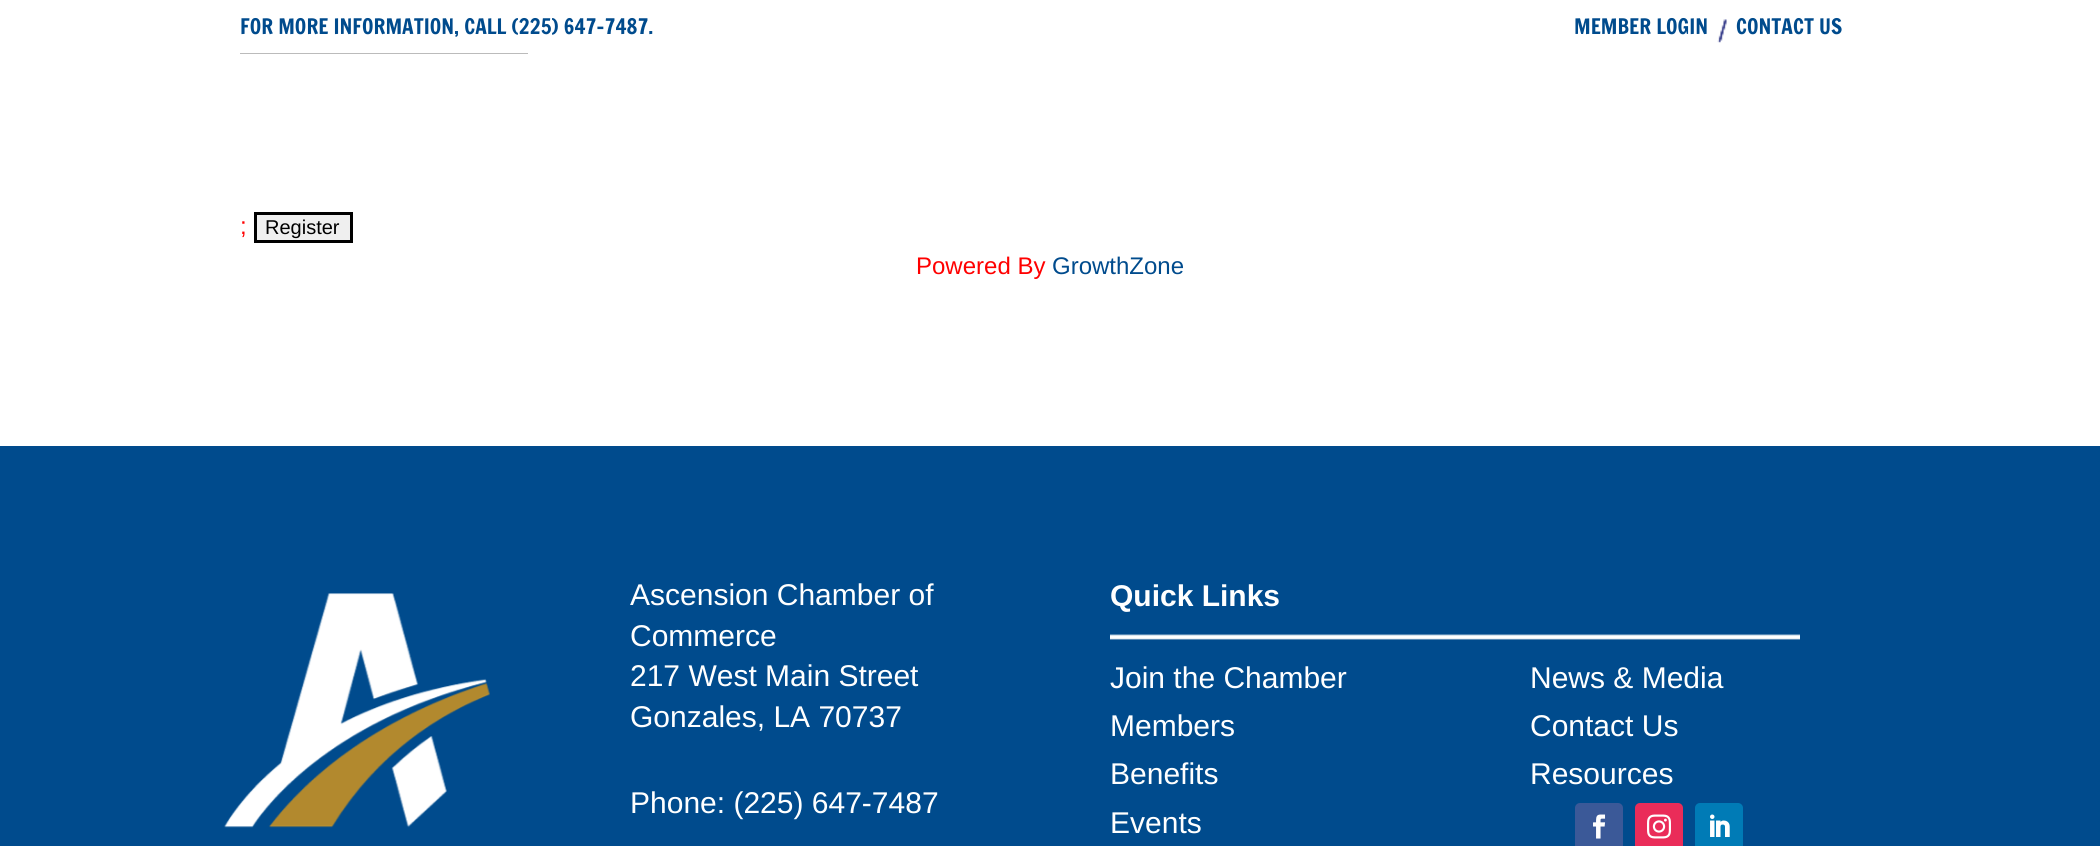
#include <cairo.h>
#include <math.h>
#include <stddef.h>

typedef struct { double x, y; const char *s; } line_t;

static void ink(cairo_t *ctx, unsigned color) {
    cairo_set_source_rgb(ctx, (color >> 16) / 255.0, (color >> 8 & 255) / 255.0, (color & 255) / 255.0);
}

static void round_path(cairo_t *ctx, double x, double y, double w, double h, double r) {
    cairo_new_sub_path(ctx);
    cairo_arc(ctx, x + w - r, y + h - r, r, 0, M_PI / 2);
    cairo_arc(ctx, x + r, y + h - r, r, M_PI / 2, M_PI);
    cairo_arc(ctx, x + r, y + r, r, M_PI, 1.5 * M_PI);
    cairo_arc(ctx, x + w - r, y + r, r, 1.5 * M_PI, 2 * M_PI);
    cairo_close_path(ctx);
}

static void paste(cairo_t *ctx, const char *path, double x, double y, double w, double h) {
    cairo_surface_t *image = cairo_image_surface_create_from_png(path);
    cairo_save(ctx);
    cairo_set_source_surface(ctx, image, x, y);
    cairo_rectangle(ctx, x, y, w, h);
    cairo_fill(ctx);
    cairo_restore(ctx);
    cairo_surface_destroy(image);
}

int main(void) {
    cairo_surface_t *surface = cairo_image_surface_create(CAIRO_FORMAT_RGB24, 2100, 846);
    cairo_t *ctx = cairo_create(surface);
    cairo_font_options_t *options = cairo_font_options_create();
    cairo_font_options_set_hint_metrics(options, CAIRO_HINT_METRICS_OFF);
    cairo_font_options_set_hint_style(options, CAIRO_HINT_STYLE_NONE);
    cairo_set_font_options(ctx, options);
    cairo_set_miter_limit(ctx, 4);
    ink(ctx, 0xFFFFFF);
    cairo_paint(ctx);
    cairo_rectangle(ctx, 241, -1, 286, 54);
    ink(ctx, 0xBBBBBB);
    cairo_stroke(ctx);
    ink(ctx, 0xFFFFFF);
    cairo_rectangle(ctx, 240, 0, 288, 53);
    cairo_fill(ctx);
    cairo_select_font_face(ctx, "Francois One", CAIRO_FONT_SLANT_NORMAL, CAIRO_FONT_WEIGHT_NORMAL);
    cairo_set_font_size(ctx, 21);
    ink(ctx, 0x004B8D);
    cairo_move_to(ctx, 240, 34);
    cairo_show_text(ctx, "FOR MORE INFORMATION, CALL (225) 647-7487.");
    paste(ctx, "media/1.png", 1717, 19, 10, 24);
    cairo_move_to(ctx, 1574, 34);
    cairo_show_text(ctx, "MEMBER LOGIN");
    cairo_move_to(ctx, 1736, 34);
    cairo_show_text(ctx, "CONTACT US");
    cairo_select_font_face(ctx, "Liberation Sans", CAIRO_FONT_SLANT_NORMAL, CAIRO_FONT_WEIGHT_NORMAL);
    cairo_set_font_size(ctx, 24);
    ink(ctx, 0xFF0000);
    cairo_move_to(ctx, 240, 234);
    cairo_show_text(ctx, ";");
    ink(ctx, 0xEFEFEF);
    cairo_rectangle(ctx, 255.5, 213.5, 96, 28);
    cairo_fill_preserve(ctx);
    ink(ctx, 0x000000);
    cairo_set_line_width(ctx, 3);
    cairo_stroke(ctx);
    cairo_set_font_size(ctx, 20);
    cairo_move_to(ctx, 265, 234);
    cairo_show_text(ctx, "Register");
    cairo_set_font_size(ctx, 24);
    ink(ctx, 0xFF0000);
    cairo_move_to(ctx, 916, 274);
    cairo_show_text(ctx, "Powered By");
    ink(ctx, 0x004B8D);
    cairo_move_to(ctx, 1052, 274);
    cairo_show_text(ctx, "GrowthZone");
    cairo_rectangle(ctx, 0, 446, 2100, 400);
    cairo_fill(ctx);
    paste(ctx, "media/2.png", 224, 593, 266, 235);
    cairo_set_font_size(ctx, 30);
    ink(ctx, 0xFFFFFF);
    {
        static const line_t items[] = {
            {630, 605, "Ascension Chamber of"},
            {630, 646, "Commerce"},
            {630, 686, "217 West Main Street"},
            {630, 727, "Gonzales, LA 70737"},
            {630, 813, "Phone: (225) 647-7487"},
        };
        for (size_t i = 0; i < sizeof items / sizeof *items; i++) {
            cairo_move_to(ctx, items[i].x, items[i].y);
            cairo_show_text(ctx, items[i].s);
        }
    }
    cairo_select_font_face(ctx, "Liberation Sans", CAIRO_FONT_SLANT_NORMAL, CAIRO_FONT_WEIGHT_BOLD);
    cairo_move_to(ctx, 1110, 606);
    cairo_show_text(ctx, "Quick Links");
    paste(ctx, "media/3.png", 1110, 634, 690, 6);
    cairo_select_font_face(ctx, "Liberation Sans", CAIRO_FONT_SLANT_NORMAL, CAIRO_FONT_WEIGHT_NORMAL);
    {
        static const line_t items[] = {
            {1110, 688, "Join the Chamber"},
            {1110, 736, "Members"},
            {1110, 784, "Benefits"},
            {1110, 833, "Events"},
            {1530, 688, "News & Media"},
            {1530, 736, "Contact Us"},
            {1530, 784, "Resources"},
        };
        for (size_t i = 0; i < sizeof items / sizeof *items; i++) {
            cairo_move_to(ctx, items[i].x, items[i].y);
            cairo_show_text(ctx, items[i].s);
        }
    }
    ink(ctx, 0x3B5998);
    round_path(ctx, 1575, 803, 48, 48, 5);
    cairo_fill(ctx);
    paste(ctx, "media/4.png", 1593, 814, 13, 25);
    ink(ctx, 0xEA2C59);
    round_path(ctx, 1635, 803, 48, 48, 5);
    cairo_fill(ctx);
    paste(ctx, "media/5.png", 1647, 814, 24, 25);
    ink(ctx, 0x007BB6);
    round_path(ctx, 1695, 803, 48, 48, 5);
    cairo_fill(ctx);
    paste(ctx, "media/6.png", 1710, 814, 20, 23);
    cairo_surface_write_to_png(surface, "image.png");
    cairo_font_options_destroy(options);
    cairo_destroy(ctx);
    cairo_surface_destroy(surface);
    return 0;
}
